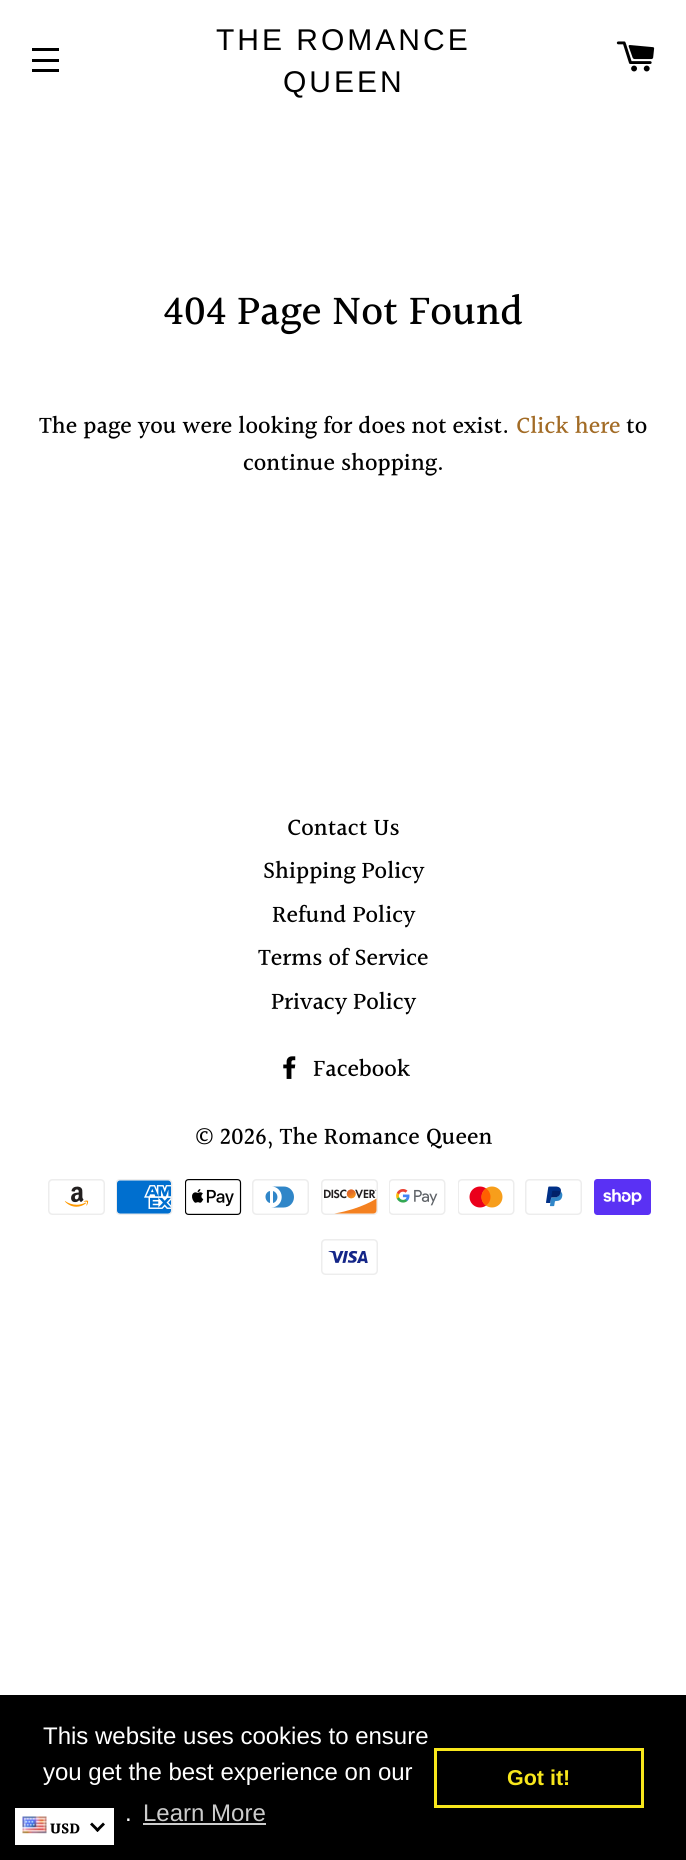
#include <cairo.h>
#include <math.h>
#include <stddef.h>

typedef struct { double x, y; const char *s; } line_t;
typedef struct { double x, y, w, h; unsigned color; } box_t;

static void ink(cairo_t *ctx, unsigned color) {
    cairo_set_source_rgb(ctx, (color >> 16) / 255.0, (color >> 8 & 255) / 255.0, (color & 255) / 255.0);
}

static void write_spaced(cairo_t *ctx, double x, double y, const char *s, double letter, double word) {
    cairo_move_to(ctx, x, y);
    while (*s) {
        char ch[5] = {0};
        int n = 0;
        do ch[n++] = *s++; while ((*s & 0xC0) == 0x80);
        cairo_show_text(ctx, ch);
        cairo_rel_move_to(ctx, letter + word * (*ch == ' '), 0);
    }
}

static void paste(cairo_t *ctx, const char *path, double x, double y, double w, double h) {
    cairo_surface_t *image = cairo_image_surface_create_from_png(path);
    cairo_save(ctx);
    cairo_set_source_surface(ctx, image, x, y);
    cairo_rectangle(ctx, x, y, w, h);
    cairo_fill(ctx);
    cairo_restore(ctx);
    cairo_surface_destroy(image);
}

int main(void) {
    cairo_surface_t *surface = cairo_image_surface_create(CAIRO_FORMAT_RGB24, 686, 1860);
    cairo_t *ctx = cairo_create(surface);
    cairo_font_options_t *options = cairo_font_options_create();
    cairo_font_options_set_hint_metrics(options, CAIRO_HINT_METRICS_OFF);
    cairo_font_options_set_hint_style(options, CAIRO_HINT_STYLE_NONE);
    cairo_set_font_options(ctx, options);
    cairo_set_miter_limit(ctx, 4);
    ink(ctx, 0xFFFFFF);
    cairo_paint(ctx);
    {
        static const box_t items[] = {
            {32, 48, 27, 3, 0x000000},
            {32, 59, 27, 3, 0x000000},
            {32, 69, 27, 3, 0x000000},
        };
        for (size_t i = 0; i < sizeof items / sizeof *items; i++) {
            ink(ctx, items[i].color);
            cairo_rectangle(ctx, items[i].x, items[i].y, items[i].w, items[i].h);
            cairo_fill(ctx);
        }
    }
    cairo_select_font_face(ctx, "Liberation Sans", CAIRO_FONT_SLANT_NORMAL, CAIRO_FONT_WEIGHT_NORMAL);
    cairo_set_font_size(ctx, 30);
    write_spaced(ctx, 216, 50, "THE ROMANCE", 3, 0);
    write_spaced(ctx, 283, 92, "QUEEN", 3, 0);
    paste(ctx, "media/1.png", 616, 41, 39, 31);
    cairo_select_font_face(ctx, "Halant Medium", CAIRO_FONT_SLANT_NORMAL, CAIRO_FONT_WEIGHT_NORMAL);
    cairo_set_font_size(ctx, 42);
    cairo_move_to(ctx, 163, 326);
    cairo_show_text(ctx, "404 Page Not Found");
    cairo_set_font_size(ctx, 24);
    cairo_move_to(ctx, 39, 434);
    cairo_show_text(ctx, "The page you were looking for does not exist.");
    ink(ctx, 0xA26B25);
    cairo_move_to(ctx, 516, 434);
    cairo_show_text(ctx, "Click here");
    ink(ctx, 0x000000);
    {
        static const line_t items[] = {
            {626, 434, "to"},
            {243, 471, "continue shopping."},
            {287, 836, "Contact Us"},
            {263, 879, "Shipping Policy"},
            {272, 923, "Refund Policy"},
            {258, 966, "Terms of Service"},
            {271, 1010, "Privacy Policy"},
        };
        for (size_t i = 0; i < sizeof items / sizeof *items; i++) {
            cairo_move_to(ctx, items[i].x, items[i].y);
            cairo_show_text(ctx, items[i].s);
        }
    }
    paste(ctx, "media/2.png", 283, 1056, 13, 23);
    cairo_move_to(ctx, 313, 1077);
    cairo_show_text(ctx, "Facebook");
    cairo_move_to(ctx, 195, 1145);
    cairo_show_text(ctx, "© 2026, The Romance Queen");
    paste(ctx, "media/3.png", 48, 1179, 57, 36);
    paste(ctx, "media/4.png", 116, 1179, 57, 36);
    paste(ctx, "media/5.png", 185, 1179, 57, 36);
    paste(ctx, "media/6.png", 252, 1179, 57, 36);
    paste(ctx, "media/7.png", 321, 1179, 57, 36);
    paste(ctx, "media/8.png", 389, 1179, 57, 36);
    paste(ctx, "media/9.png", 458, 1179, 57, 36);
    paste(ctx, "media/10.png", 525, 1179, 57, 36);
    paste(ctx, "media/11.png", 594, 1179, 57, 36);
    paste(ctx, "media/12.png", 321, 1239, 57, 36);
    cairo_rectangle(ctx, 0, 1695, 686, 165);
    cairo_fill(ctx);
    cairo_select_font_face(ctx, "Liberation Sans", CAIRO_FONT_SLANT_NORMAL, CAIRO_FONT_WEIGHT_NORMAL);
    ink(ctx, 0xFFFFFF);
    {
        static const line_t items[] = {
            {43, 1744, "This website uses cookies to ensure"},
            {43, 1780, "you get the best experience on our"},
            {125, 1821, "."},
        };
        for (size_t i = 0; i < sizeof items / sizeof *items; i++) {
            cairo_move_to(ctx, items[i].x, items[i].y);
            cairo_show_text(ctx, items[i].s);
        }
    }
    ink(ctx, 0xCCCCCC);
    cairo_move_to(ctx, 143, 1821);
    cairo_show_text(ctx, "Learn More");
    cairo_rectangle(ctx, 143, 1823, 123, 2);
    cairo_fill(ctx);
    cairo_rectangle(ctx, 435.5, 1749.5, 207, 57);
    ink(ctx, 0xF8E71C);
    cairo_set_line_width(ctx, 3);
    cairo_stroke(ctx);
    cairo_select_font_face(ctx, "Liberation Sans", CAIRO_FONT_SLANT_NORMAL, CAIRO_FONT_WEIGHT_BOLD);
    cairo_set_font_size(ctx, 21.5);
    cairo_move_to(ctx, 507, 1785);
    cairo_show_text(ctx, "Got it!");
    ink(ctx, 0xFFFFFF);
    cairo_rectangle(ctx, 15, 1808, 99, 37);
    cairo_fill(ctx);
    paste(ctx, "media/13.png", 22, 1816, 25, 18);
    cairo_select_font_face(ctx, "Halant", CAIRO_FONT_SLANT_NORMAL, CAIRO_FONT_WEIGHT_BOLD);
    cairo_set_font_size(ctx, 15);
    ink(ctx, 0x000000);
    cairo_move_to(ctx, 50, 1834);
    cairo_show_text(ctx, "USD");
    cairo_new_path(ctx);
    cairo_move_to(ctx, 103, 1822.5);
    cairo_line_to(ctx, 105, 1824.5);
    cairo_line_to(ctx, 97.5, 1832);
    cairo_line_to(ctx, 95.5, 1830);
    cairo_close_path(ctx);
    cairo_fill(ctx);
    cairo_new_path(ctx);
    cairo_move_to(ctx, 92, 1822.5);
    cairo_line_to(ctx, 99.5, 1830);
    cairo_line_to(ctx, 97.5, 1832);
    cairo_line_to(ctx, 90, 1824.5);
    cairo_close_path(ctx);
    cairo_fill(ctx);
    cairo_surface_write_to_png(surface, "image.png");
    cairo_font_options_destroy(options);
    cairo_destroy(ctx);
    cairo_surface_destroy(surface);
    return 0;
}
